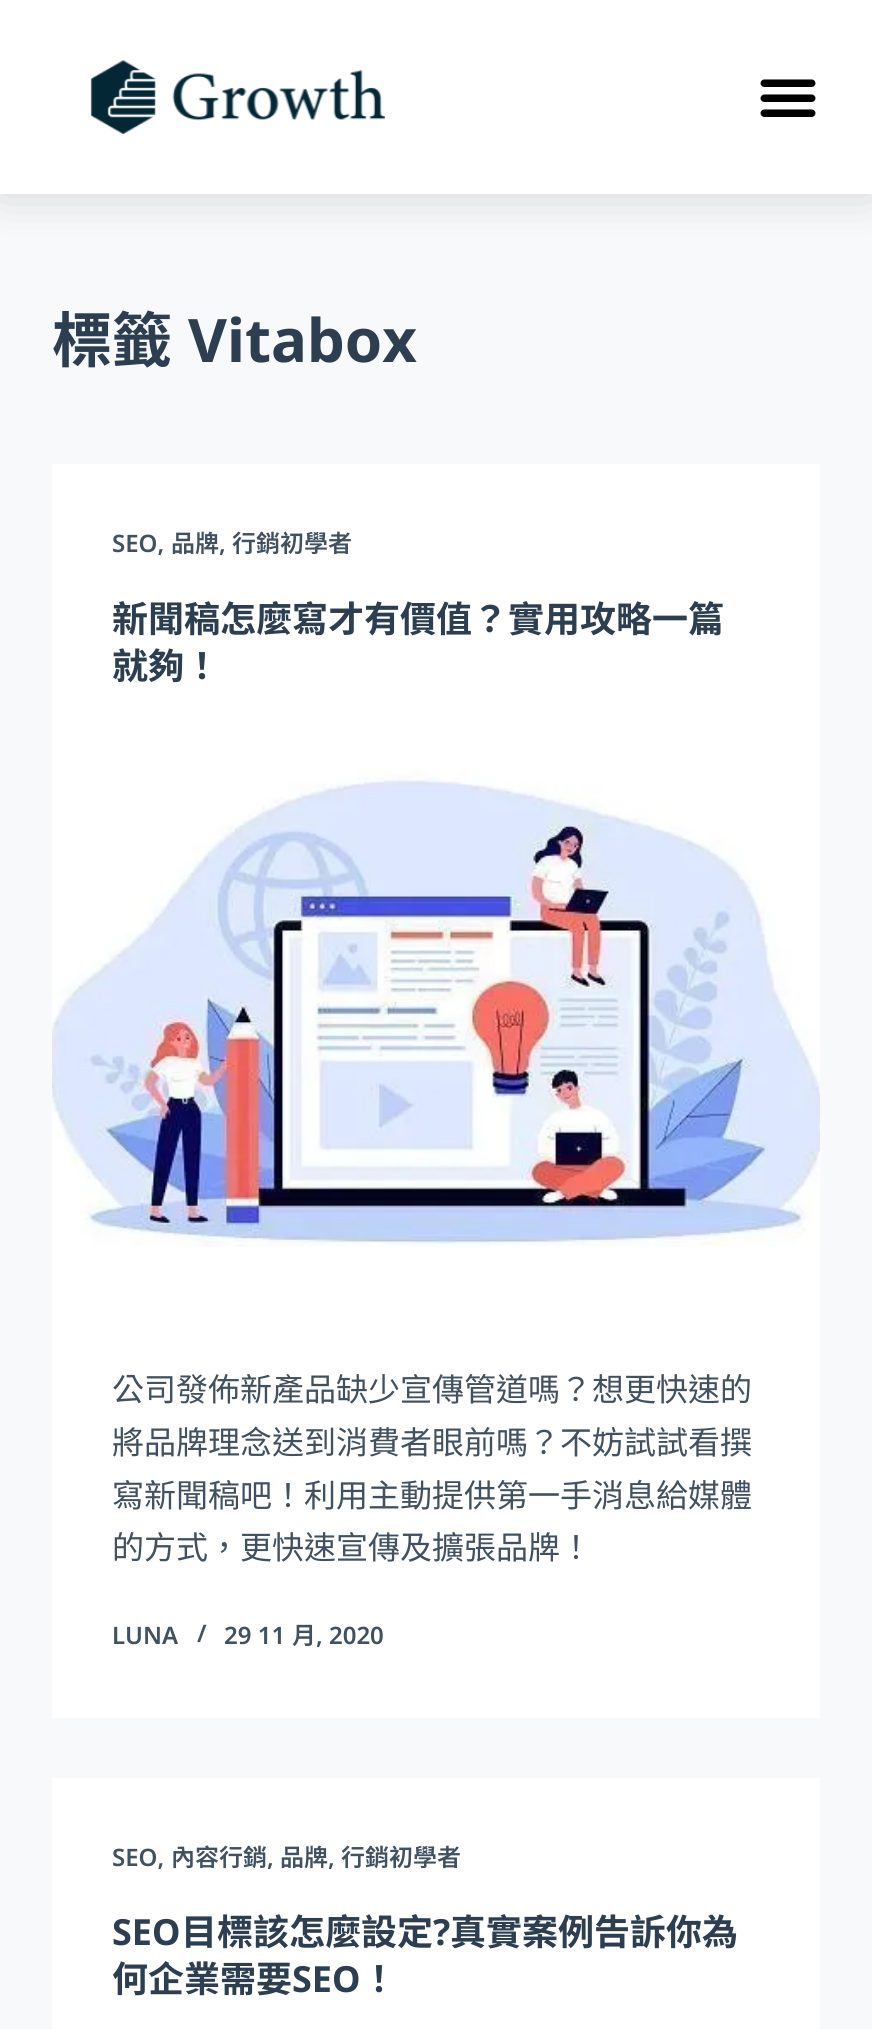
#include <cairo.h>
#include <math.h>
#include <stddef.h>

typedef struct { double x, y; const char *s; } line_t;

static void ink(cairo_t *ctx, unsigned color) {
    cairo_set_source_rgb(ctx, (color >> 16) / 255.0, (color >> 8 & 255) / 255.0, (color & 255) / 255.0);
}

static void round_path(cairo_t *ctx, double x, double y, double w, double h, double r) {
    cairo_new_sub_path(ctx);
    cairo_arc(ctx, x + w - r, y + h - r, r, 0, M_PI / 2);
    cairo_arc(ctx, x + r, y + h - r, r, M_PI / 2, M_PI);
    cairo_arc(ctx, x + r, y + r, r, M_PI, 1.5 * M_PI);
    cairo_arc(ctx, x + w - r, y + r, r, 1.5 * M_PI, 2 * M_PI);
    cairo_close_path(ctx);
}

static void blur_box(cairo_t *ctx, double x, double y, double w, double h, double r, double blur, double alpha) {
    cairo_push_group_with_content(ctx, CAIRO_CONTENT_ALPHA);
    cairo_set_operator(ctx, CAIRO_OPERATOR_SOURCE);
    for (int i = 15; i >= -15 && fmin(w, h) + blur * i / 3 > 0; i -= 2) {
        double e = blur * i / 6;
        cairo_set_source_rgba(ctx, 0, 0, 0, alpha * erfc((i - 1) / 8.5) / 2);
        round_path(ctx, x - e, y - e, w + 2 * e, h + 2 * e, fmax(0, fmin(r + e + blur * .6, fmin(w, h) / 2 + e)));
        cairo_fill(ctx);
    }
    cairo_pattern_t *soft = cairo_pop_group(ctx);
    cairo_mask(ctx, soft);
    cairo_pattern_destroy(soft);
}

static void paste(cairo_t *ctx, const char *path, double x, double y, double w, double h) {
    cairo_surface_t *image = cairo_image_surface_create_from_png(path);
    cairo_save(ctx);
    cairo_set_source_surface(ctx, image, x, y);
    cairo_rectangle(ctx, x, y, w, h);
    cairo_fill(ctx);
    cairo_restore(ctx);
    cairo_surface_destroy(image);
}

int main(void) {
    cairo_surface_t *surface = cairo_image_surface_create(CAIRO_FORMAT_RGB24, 872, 2029);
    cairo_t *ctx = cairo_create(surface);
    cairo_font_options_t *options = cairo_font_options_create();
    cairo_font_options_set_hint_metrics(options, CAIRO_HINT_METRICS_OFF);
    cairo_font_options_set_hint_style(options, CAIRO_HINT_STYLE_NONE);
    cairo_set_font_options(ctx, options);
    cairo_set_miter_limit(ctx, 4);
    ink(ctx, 0xF8F9FB);
    cairo_paint(ctx);
    ink(ctx, 0x000000);
    blur_box(ctx, 0, 0, 872, 194, 0, 24, 0.15);
    ink(ctx, 0xFFFFFF);
    cairo_rectangle(ctx, 0, 0, 872, 194);
    cairo_fill(ctx);
    paste(ctx, "media/1.png", 90, 60, 296, 74);
    paste(ctx, "media/2.png", 760, 79, 56, 38);
    cairo_select_font_face(ctx, "Noto Sans TC", CAIRO_FONT_SLANT_NORMAL, CAIRO_FONT_WEIGHT_BOLD);
    cairo_set_font_size(ctx, 60);
    ink(ctx, 0x2C3E50);
    cairo_move_to(ctx, 52, 362);
    cairo_show_text(ctx, "標籤");
    cairo_select_font_face(ctx, "Noto Sans", CAIRO_FONT_SLANT_NORMAL, CAIRO_FONT_WEIGHT_BOLD);
    cairo_move_to(ctx, 188, 362);
    cairo_show_text(ctx, "Vitabox");
    ink(ctx, 0xFFFFFF);
    cairo_rectangle(ctx, 52, 464, 768, 1254);
    cairo_fill(ctx);
    cairo_select_font_face(ctx, "Noto Sans SemiBold", CAIRO_FONT_SLANT_NORMAL, CAIRO_FONT_WEIGHT_NORMAL);
    cairo_set_font_size(ctx, 24);
    ink(ctx, 0x415161);
    cairo_move_to(ctx, 112, 552);
    cairo_show_text(ctx, "SEO,");
    cairo_select_font_face(ctx, "Noto Sans TC SemiBold", CAIRO_FONT_SLANT_NORMAL, CAIRO_FONT_WEIGHT_NORMAL);
    cairo_move_to(ctx, 171, 552);
    cairo_show_text(ctx, "品牌");
    cairo_select_font_face(ctx, "Noto Sans SemiBold", CAIRO_FONT_SLANT_NORMAL, CAIRO_FONT_WEIGHT_NORMAL);
    cairo_move_to(ctx, 219, 552);
    cairo_show_text(ctx, ",");
    cairo_select_font_face(ctx, "Noto Sans TC SemiBold", CAIRO_FONT_SLANT_NORMAL, CAIRO_FONT_WEIGHT_NORMAL);
    cairo_move_to(ctx, 232, 552);
    cairo_show_text(ctx, "行銷初學者");
    cairo_select_font_face(ctx, "Noto Sans TC", CAIRO_FONT_SLANT_NORMAL, CAIRO_FONT_WEIGHT_BOLD);
    cairo_set_font_size(ctx, 36);
    ink(ctx, 0x2C3E50);
    cairo_move_to(ctx, 112, 632);
    cairo_show_text(ctx, "新聞稿怎麼寫才有價值？實用攻略一篇");
    cairo_move_to(ctx, 112, 679);
    cairo_show_text(ctx, "就夠！");
    paste(ctx, "media/3.png", 52, 767, 768, 480);
    cairo_select_font_face(ctx, "Noto Sans CJK TC", CAIRO_FONT_SLANT_NORMAL, CAIRO_FONT_WEIGHT_NORMAL);
    cairo_set_font_size(ctx, 32);
    ink(ctx, 0x415161);
    {
        static const line_t items[] = {
            {112, 1401, "公司發佈新產品缺少宣傳管道嗎？想更快速的"},
            {112, 1454, "將品牌理念送到消費者眼前嗎？不妨試試看撰"},
            {112, 1507, "寫新聞稿吧！利用主動提供第一手消息給媒體"},
            {112, 1559, "的方式，更快速宣傳及擴張品牌！"},
        };
        for (size_t i = 0; i < sizeof items / sizeof *items; i++) {
            cairo_move_to(ctx, items[i].x, items[i].y);
            cairo_show_text(ctx, items[i].s);
        }
    }
    cairo_select_font_face(ctx, "Noto Sans SemiBold", CAIRO_FONT_SLANT_NORMAL, CAIRO_FONT_WEIGHT_NORMAL);
    cairo_set_font_size(ctx, 24);
    {
        static const line_t items[] = {
            {112, 1644, "LUNA"},
            {197, 1642, "/"},
            {224, 1644, "29 11"},
        };
        for (size_t i = 0; i < sizeof items / sizeof *items; i++) {
            cairo_move_to(ctx, items[i].x, items[i].y);
            cairo_show_text(ctx, items[i].s);
        }
    }
    cairo_select_font_face(ctx, "Noto Sans TC SemiBold", CAIRO_FONT_SLANT_NORMAL, CAIRO_FONT_WEIGHT_NORMAL);
    cairo_move_to(ctx, 292, 1644);
    cairo_show_text(ctx, "月");
    cairo_select_font_face(ctx, "Noto Sans SemiBold", CAIRO_FONT_SLANT_NORMAL, CAIRO_FONT_WEIGHT_NORMAL);
    cairo_move_to(ctx, 316, 1644);
    cairo_show_text(ctx, ", 2020");
    ink(ctx, 0xFFFFFF);
    cairo_rectangle(ctx, 52, 1778, 768, 251);
    cairo_fill(ctx);
    ink(ctx, 0x415161);
    cairo_move_to(ctx, 112, 1866);
    cairo_show_text(ctx, "SEO,");
    cairo_select_font_face(ctx, "Noto Sans TC SemiBold", CAIRO_FONT_SLANT_NORMAL, CAIRO_FONT_WEIGHT_NORMAL);
    cairo_move_to(ctx, 171, 1866);
    cairo_show_text(ctx, "內容行銷");
    cairo_select_font_face(ctx, "Noto Sans SemiBold", CAIRO_FONT_SLANT_NORMAL, CAIRO_FONT_WEIGHT_NORMAL);
    cairo_move_to(ctx, 267, 1866);
    cairo_show_text(ctx, ",");
    cairo_select_font_face(ctx, "Noto Sans TC SemiBold", CAIRO_FONT_SLANT_NORMAL, CAIRO_FONT_WEIGHT_NORMAL);
    cairo_move_to(ctx, 280, 1866);
    cairo_show_text(ctx, "品牌");
    cairo_select_font_face(ctx, "Noto Sans SemiBold", CAIRO_FONT_SLANT_NORMAL, CAIRO_FONT_WEIGHT_NORMAL);
    cairo_move_to(ctx, 328, 1866);
    cairo_show_text(ctx, ",");
    cairo_select_font_face(ctx, "Noto Sans TC SemiBold", CAIRO_FONT_SLANT_NORMAL, CAIRO_FONT_WEIGHT_NORMAL);
    cairo_move_to(ctx, 341, 1866);
    cairo_show_text(ctx, "行銷初學者");
    cairo_select_font_face(ctx, "Noto Sans", CAIRO_FONT_SLANT_NORMAL, CAIRO_FONT_WEIGHT_BOLD);
    cairo_set_font_size(ctx, 36);
    ink(ctx, 0x2C3E50);
    cairo_move_to(ctx, 112, 1945);
    cairo_show_text(ctx, "SEO");
    cairo_select_font_face(ctx, "Noto Sans TC", CAIRO_FONT_SLANT_NORMAL, CAIRO_FONT_WEIGHT_BOLD);
    cairo_move_to(ctx, 181, 1945);
    cairo_show_text(ctx, "目標該怎麼設定");
    cairo_select_font_face(ctx, "Noto Sans", CAIRO_FONT_SLANT_NORMAL, CAIRO_FONT_WEIGHT_BOLD);
    cairo_move_to(ctx, 433, 1945);
    cairo_show_text(ctx, "?");
    cairo_select_font_face(ctx, "Noto Sans TC", CAIRO_FONT_SLANT_NORMAL, CAIRO_FONT_WEIGHT_BOLD);
    cairo_move_to(ctx, 450, 1945);
    cairo_show_text(ctx, "真實案例告訴你為");
    cairo_move_to(ctx, 112, 1992);
    cairo_show_text(ctx, "何企業需要");
    cairo_select_font_face(ctx, "Noto Sans", CAIRO_FONT_SLANT_NORMAL, CAIRO_FONT_WEIGHT_BOLD);
    cairo_move_to(ctx, 292, 1992);
    cairo_show_text(ctx, "SEO");
    cairo_select_font_face(ctx, "Noto Sans TC", CAIRO_FONT_SLANT_NORMAL, CAIRO_FONT_WEIGHT_BOLD);
    cairo_move_to(ctx, 361, 1992);
    cairo_show_text(ctx, "！");
    cairo_surface_write_to_png(surface, "image.png");
    cairo_font_options_destroy(options);
    cairo_destroy(ctx);
    cairo_surface_destroy(surface);
    return 0;
}
